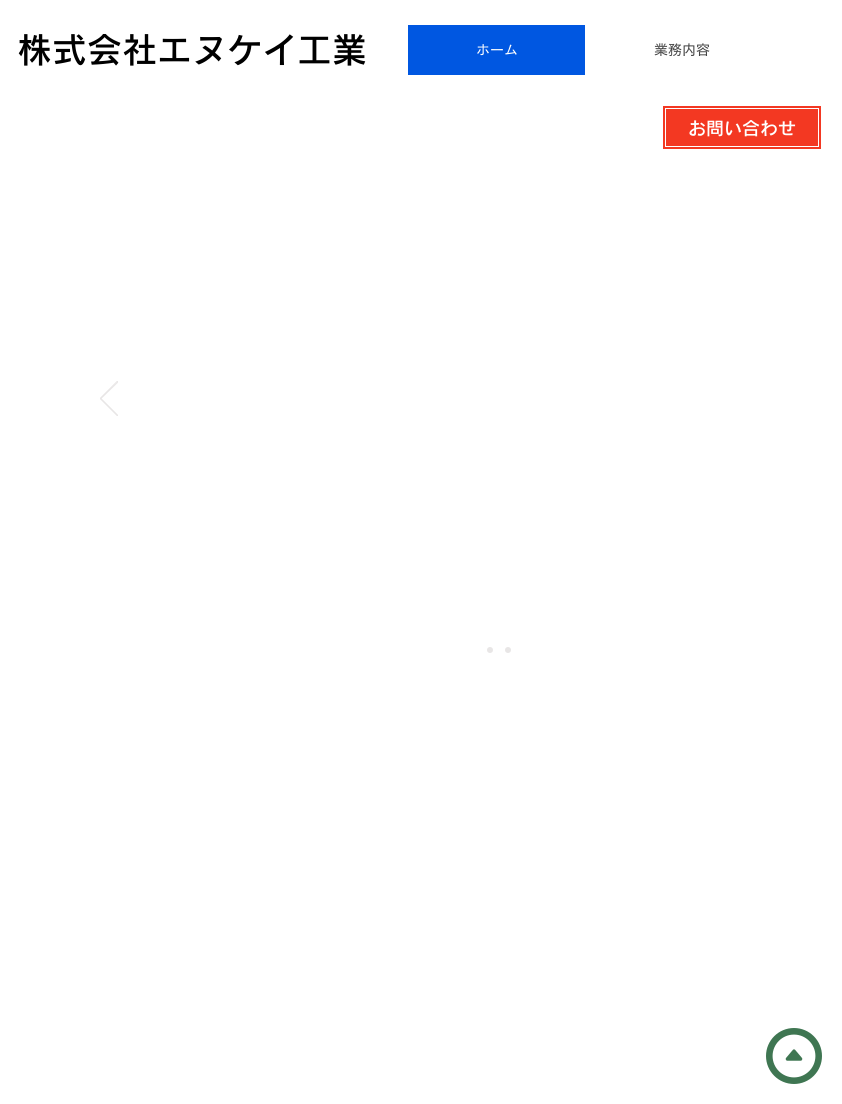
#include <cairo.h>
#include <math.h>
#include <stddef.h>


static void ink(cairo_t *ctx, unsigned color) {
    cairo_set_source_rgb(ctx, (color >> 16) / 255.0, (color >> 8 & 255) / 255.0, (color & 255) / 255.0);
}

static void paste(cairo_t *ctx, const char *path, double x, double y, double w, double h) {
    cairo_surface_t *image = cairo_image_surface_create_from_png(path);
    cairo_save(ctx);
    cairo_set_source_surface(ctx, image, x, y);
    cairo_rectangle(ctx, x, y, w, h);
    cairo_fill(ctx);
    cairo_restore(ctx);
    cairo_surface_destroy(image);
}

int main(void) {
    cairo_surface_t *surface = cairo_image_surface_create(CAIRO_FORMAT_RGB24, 842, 1104);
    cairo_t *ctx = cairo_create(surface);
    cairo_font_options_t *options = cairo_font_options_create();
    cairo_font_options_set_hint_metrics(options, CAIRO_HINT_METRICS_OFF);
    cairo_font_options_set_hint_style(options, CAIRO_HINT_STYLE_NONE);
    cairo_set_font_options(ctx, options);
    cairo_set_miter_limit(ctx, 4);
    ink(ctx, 0xFFFFFF);
    cairo_paint(ctx);
    cairo_select_font_face(ctx, "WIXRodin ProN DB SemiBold", CAIRO_FONT_SLANT_NORMAL, CAIRO_FONT_WEIGHT_NORMAL);
    cairo_set_font_size(ctx, 35);
    ink(ctx, 0x000000);
    cairo_move_to(ctx, 17, 63);
    cairo_show_text(ctx, "株式会社エヌケイ工業");
    ink(ctx, 0x0057E1);
    cairo_rectangle(ctx, 408, 25, 177, 50);
    cairo_fill(ctx);
    cairo_select_font_face(ctx, "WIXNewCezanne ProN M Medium", CAIRO_FONT_SLANT_NORMAL, CAIRO_FONT_WEIGHT_NORMAL);
    cairo_set_font_size(ctx, 14);
    ink(ctx, 0xFFFFFF);
    cairo_move_to(ctx, 476, 55);
    cairo_show_text(ctx, "ホーム");
    ink(ctx, 0x444444);
    cairo_move_to(ctx, 654, 55);
    cairo_show_text(ctx, "業務内容");
    ink(ctx, 0xF33822);
    cairo_rectangle(ctx, 663, 106, 158, 43);
    cairo_fill(ctx);
    cairo_rectangle(ctx, 665.5, 108.5, 153, 38);
    ink(ctx, 0xFFFFFF);
    cairo_set_line_width(ctx, 1);
    cairo_stroke(ctx);
    cairo_select_font_face(ctx, "WIXRodin ProN DB SemiBold", CAIRO_FONT_SLANT_NORMAL, CAIRO_FONT_WEIGHT_NORMAL);
    cairo_set_font_size(ctx, 18);
    cairo_move_to(ctx, 688, 135);
    cairo_show_text(ctx, "お問い合わせ");
    cairo_save(ctx);
    cairo_rectangle(ctx, 100, 381, 18, 35);
    cairo_clip(ctx);
    cairo_new_path(ctx);
    cairo_move_to(ctx, 117.5, 416);
    cairo_line_to(ctx, 100, 398.5);
    cairo_line_to(ctx, 117.5, 381);
    cairo_line_to(ctx, 118, 382);
    cairo_line_to(ctx, 101, 398.5);
    cairo_line_to(ctx, 118, 415.5);
    cairo_close_path(ctx);
    ink(ctx, 0xE8E6E6);
    cairo_set_line_width(ctx, 0.9);
    cairo_stroke(ctx);
    cairo_restore(ctx);
    ink(ctx, 0xE8E6E6);
    cairo_arc(ctx, 490, 650, 3, 0, 2 * M_PI);
    cairo_fill(ctx);
    cairo_arc(ctx, 508, 650, 3, 0, 2 * M_PI);
    cairo_fill(ctx);
    paste(ctx, "media/1.png", 766, 1028, 56, 56);
    cairo_surface_write_to_png(surface, "image.png");
    cairo_font_options_destroy(options);
    cairo_destroy(ctx);
    cairo_surface_destroy(surface);
    return 0;
}
